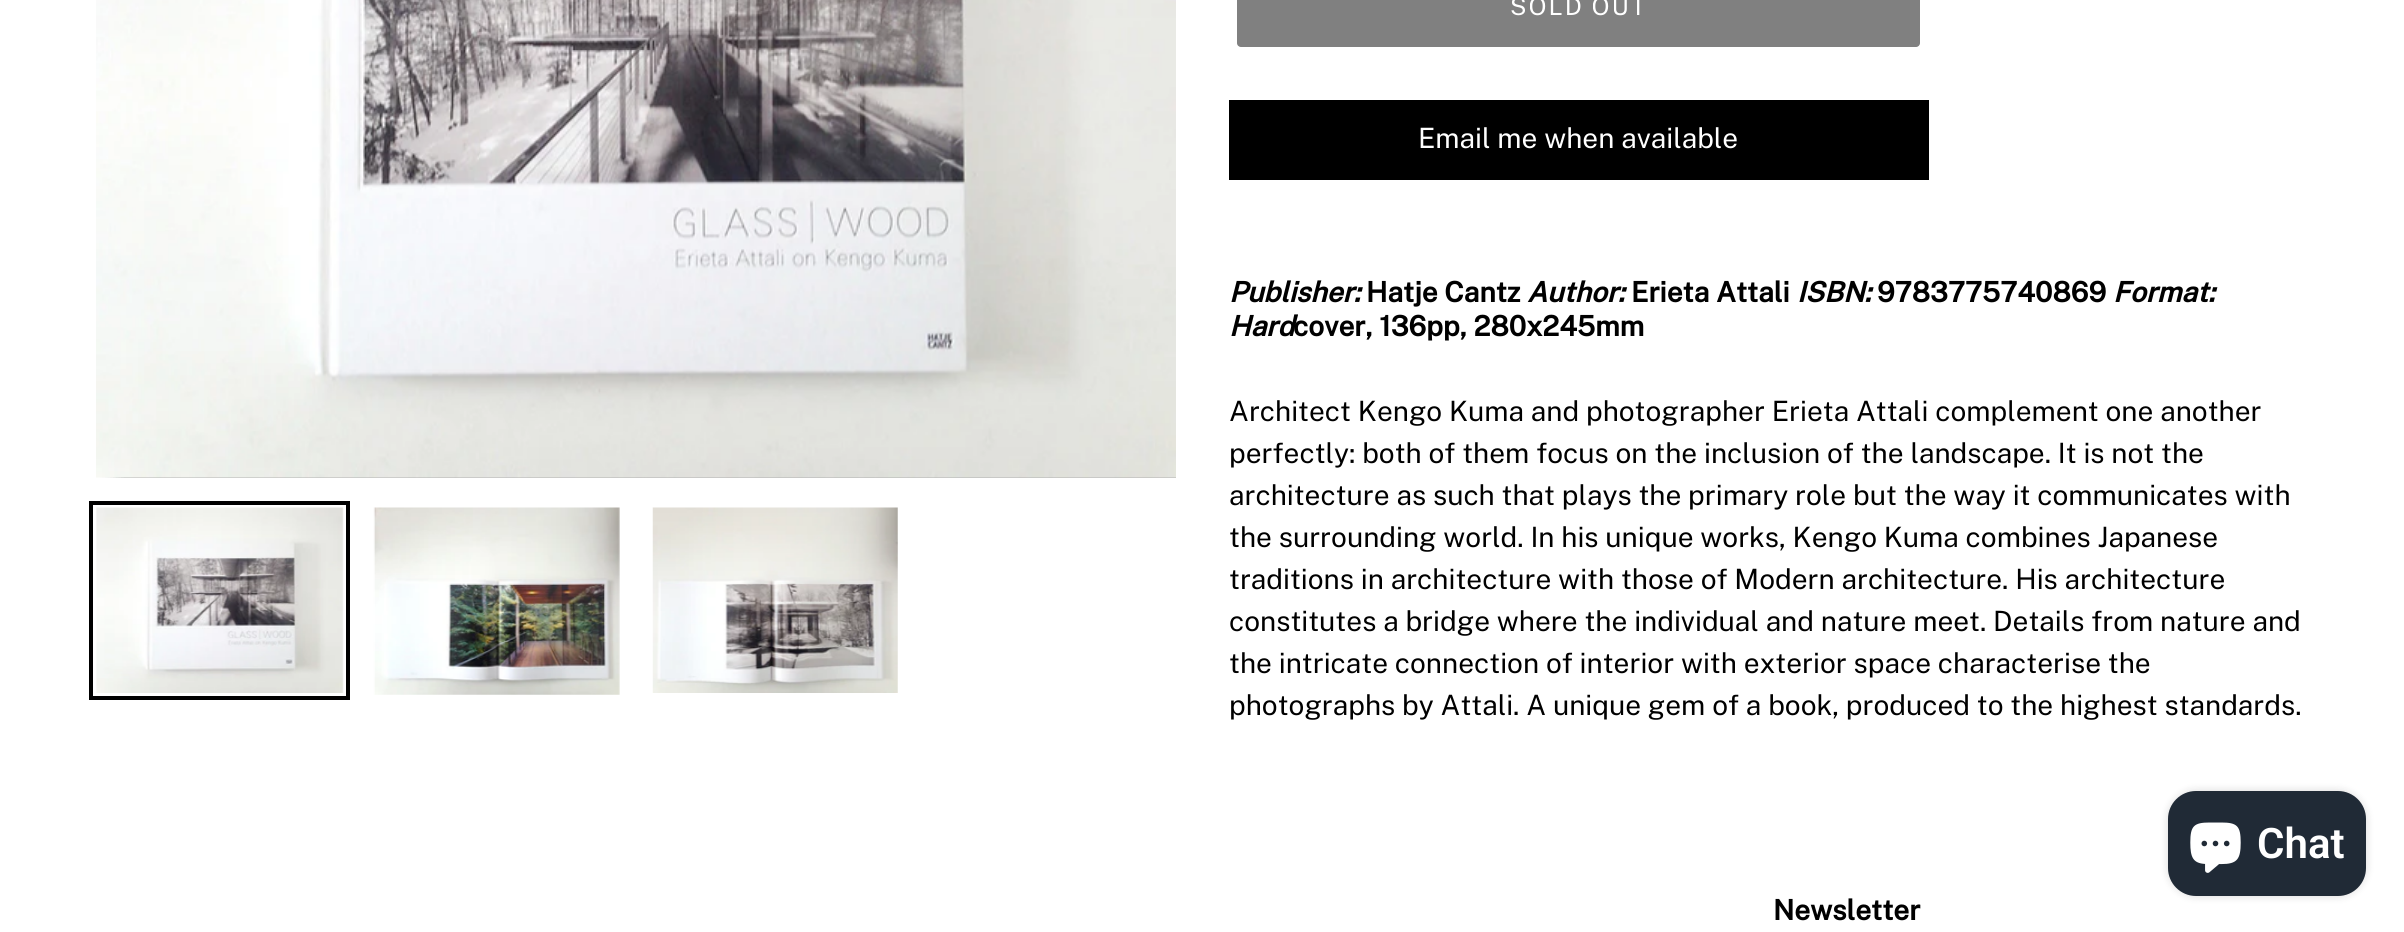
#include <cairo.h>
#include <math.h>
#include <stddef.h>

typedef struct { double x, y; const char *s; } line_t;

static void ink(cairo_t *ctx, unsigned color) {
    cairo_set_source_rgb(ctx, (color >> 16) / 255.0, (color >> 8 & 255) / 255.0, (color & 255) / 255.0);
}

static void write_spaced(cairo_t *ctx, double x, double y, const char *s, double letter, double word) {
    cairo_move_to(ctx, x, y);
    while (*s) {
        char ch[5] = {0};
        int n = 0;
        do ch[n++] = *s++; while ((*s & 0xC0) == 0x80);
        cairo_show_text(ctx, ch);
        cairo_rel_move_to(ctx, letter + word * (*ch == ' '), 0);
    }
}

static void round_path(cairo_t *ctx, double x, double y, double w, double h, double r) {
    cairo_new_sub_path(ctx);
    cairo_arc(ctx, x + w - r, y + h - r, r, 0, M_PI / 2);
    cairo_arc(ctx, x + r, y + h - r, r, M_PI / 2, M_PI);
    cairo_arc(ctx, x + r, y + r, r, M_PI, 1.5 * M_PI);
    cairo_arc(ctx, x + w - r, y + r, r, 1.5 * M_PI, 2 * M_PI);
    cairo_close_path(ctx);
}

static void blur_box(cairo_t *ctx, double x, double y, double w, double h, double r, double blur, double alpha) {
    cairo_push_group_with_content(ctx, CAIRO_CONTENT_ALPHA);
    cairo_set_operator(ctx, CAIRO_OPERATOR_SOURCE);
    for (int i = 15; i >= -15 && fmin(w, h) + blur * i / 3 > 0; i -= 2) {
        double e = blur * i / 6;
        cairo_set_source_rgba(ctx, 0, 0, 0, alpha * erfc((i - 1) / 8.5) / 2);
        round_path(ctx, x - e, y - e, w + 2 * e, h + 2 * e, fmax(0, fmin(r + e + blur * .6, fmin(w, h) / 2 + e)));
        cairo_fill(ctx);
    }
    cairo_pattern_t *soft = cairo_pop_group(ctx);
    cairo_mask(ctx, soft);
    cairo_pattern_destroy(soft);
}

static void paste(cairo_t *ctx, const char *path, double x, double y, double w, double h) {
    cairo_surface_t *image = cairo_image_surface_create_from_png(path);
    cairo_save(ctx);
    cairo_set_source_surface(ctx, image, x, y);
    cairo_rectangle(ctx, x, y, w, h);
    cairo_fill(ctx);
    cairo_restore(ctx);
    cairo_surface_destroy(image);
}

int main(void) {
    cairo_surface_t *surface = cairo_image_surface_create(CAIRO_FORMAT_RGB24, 2404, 932);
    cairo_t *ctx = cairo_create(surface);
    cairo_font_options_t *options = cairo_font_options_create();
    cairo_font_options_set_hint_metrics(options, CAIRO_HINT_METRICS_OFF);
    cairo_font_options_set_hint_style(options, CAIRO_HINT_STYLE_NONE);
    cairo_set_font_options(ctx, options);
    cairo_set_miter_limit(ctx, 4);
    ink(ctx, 0xFFFFFF);
    cairo_paint(ctx);
    cairo_save(ctx);
    cairo_rectangle(ctx, 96, 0, 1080, 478);
    cairo_clip(ctx);
    ink(ctx, 0x000000);
    blur_box(ctx, 117, -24, 1066, 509, 0, 8, 0.39);
    cairo_restore(ctx);
    paste(ctx, "media/1.png", 96, 0, 1080, 478);
    cairo_rectangle(ctx, 91, 503, 257, 195);
    ink(ctx, 0x000000);
    cairo_set_line_width(ctx, 4);
    cairo_stroke(ctx);
    paste(ctx, "media/2.png", 96, 507, 248, 186);
    paste(ctx, "media/3.png", 373, 507, 247, 188);
    paste(ctx, "media/4.png", 652, 507, 246, 186);
    ink(ctx, 0x808080);
    round_path(ctx, 1237, -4, 683, 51, 4);
    cairo_fill(ctx);
    cairo_select_font_face(ctx, "Public Sans", CAIRO_FONT_SLANT_NORMAL, CAIRO_FONT_WEIGHT_NORMAL);
    cairo_set_font_size(ctx, 24.5);
    ink(ctx, 0xFFFFFF);
    write_spaced(ctx, 1510, 15, "SOLD OUT", 2, 0);
    ink(ctx, 0x000000);
    cairo_rectangle(ctx, 1229, 100, 700, 80);
    cairo_fill(ctx);
    cairo_set_font_size(ctx, 28);
    ink(ctx, 0xFFFFFF);
    cairo_move_to(ctx, 1418, 148);
    cairo_show_text(ctx, "Email me when available");
    cairo_select_font_face(ctx, "Public Sans", CAIRO_FONT_SLANT_ITALIC, CAIRO_FONT_WEIGHT_BOLD);
    ink(ctx, 0x000000);
    cairo_move_to(ctx, 1229, 302);
    cairo_show_text(ctx, "Publisher:");
    cairo_select_font_face(ctx, "Public Sans", CAIRO_FONT_SLANT_NORMAL, CAIRO_FONT_WEIGHT_BOLD);
    cairo_move_to(ctx, 1366, 302);
    cairo_show_text(ctx, "Hatje Cantz");
    cairo_select_font_face(ctx, "Public Sans", CAIRO_FONT_SLANT_ITALIC, CAIRO_FONT_WEIGHT_BOLD);
    cairo_move_to(ctx, 1527, 302);
    cairo_show_text(ctx, "Author:");
    cairo_select_font_face(ctx, "Public Sans", CAIRO_FONT_SLANT_NORMAL, CAIRO_FONT_WEIGHT_BOLD);
    cairo_move_to(ctx, 1631, 302);
    cairo_show_text(ctx, "Erieta Attali");
    cairo_select_font_face(ctx, "Public Sans", CAIRO_FONT_SLANT_ITALIC, CAIRO_FONT_WEIGHT_BOLD);
    cairo_move_to(ctx, 1797, 302);
    cairo_show_text(ctx, "ISBN:");
    cairo_select_font_face(ctx, "Public Sans", CAIRO_FONT_SLANT_NORMAL, CAIRO_FONT_WEIGHT_BOLD);
    cairo_move_to(ctx, 1877, 302);
    cairo_show_text(ctx, "9783775740869");
    cairo_select_font_face(ctx, "Public Sans", CAIRO_FONT_SLANT_ITALIC, CAIRO_FONT_WEIGHT_BOLD);
    cairo_move_to(ctx, 2113, 302);
    cairo_show_text(ctx, "Format:");
    cairo_move_to(ctx, 1229, 336);
    cairo_show_text(ctx, "Hard");
    cairo_select_font_face(ctx, "Public Sans", CAIRO_FONT_SLANT_NORMAL, CAIRO_FONT_WEIGHT_BOLD);
    cairo_move_to(ctx, 1293, 336);
    cairo_show_text(ctx, "cover, 136pp, 280x245mm");
    cairo_select_font_face(ctx, "Public Sans", CAIRO_FONT_SLANT_NORMAL, CAIRO_FONT_WEIGHT_NORMAL);
    {
        static const line_t items[] = {
            {1229, 421, "Architect Kengo Kuma and photographer Erieta Attali complement one another"},
            {1229, 463, "perfectly: both of them focus on the inclusion of the landscape. It is not the"},
            {1229, 505, "architecture as such that plays the primary role but the way it communicates with"},
            {1229, 547, "the surrounding world. In his unique works, Kengo Kuma combines Japanese"},
            {1229, 589, "traditions in architecture with those of Modern architecture. His architecture"},
            {1229, 631, "constitutes a bridge where the individual and nature meet. Details from nature and"},
            {1229, 673, "the intricate connection of interior with exterior space characterise the"},
            {1229, 715, "photographs by Attali. A unique gem of a book, produced to the highest standards."},
        };
        for (size_t i = 0; i < sizeof items / sizeof *items; i++) {
            cairo_move_to(ctx, items[i].x, items[i].y);
            cairo_show_text(ctx, items[i].s);
        }
    }
    cairo_select_font_face(ctx, "Public Sans", CAIRO_FONT_SLANT_NORMAL, CAIRO_FONT_WEIGHT_BOLD);
    cairo_move_to(ctx, 1773, 920);
    cairo_show_text(ctx, "Newsletter");
    ink(ctx, 0x000000);
    blur_box(ctx, 2168, 791, 198, 105, 28, 4.5, 0.15);
    ink(ctx, 0x202A36);
    round_path(ctx, 2168, 791, 198, 105, 28);
    cairo_fill(ctx);
    paste(ctx, "media/5.png", 2190, 822, 51, 51);
    cairo_select_font_face(ctx, "Roboto SemiBold", CAIRO_FONT_SLANT_NORMAL, CAIRO_FONT_WEIGHT_NORMAL);
    cairo_set_font_size(ctx, 42);
    ink(ctx, 0xFFFFFF);
    cairo_move_to(ctx, 2257, 858);
    cairo_show_text(ctx, "Chat");
    cairo_surface_write_to_png(surface, "image.png");
    cairo_font_options_destroy(options);
    cairo_destroy(ctx);
    cairo_surface_destroy(surface);
    return 0;
}
